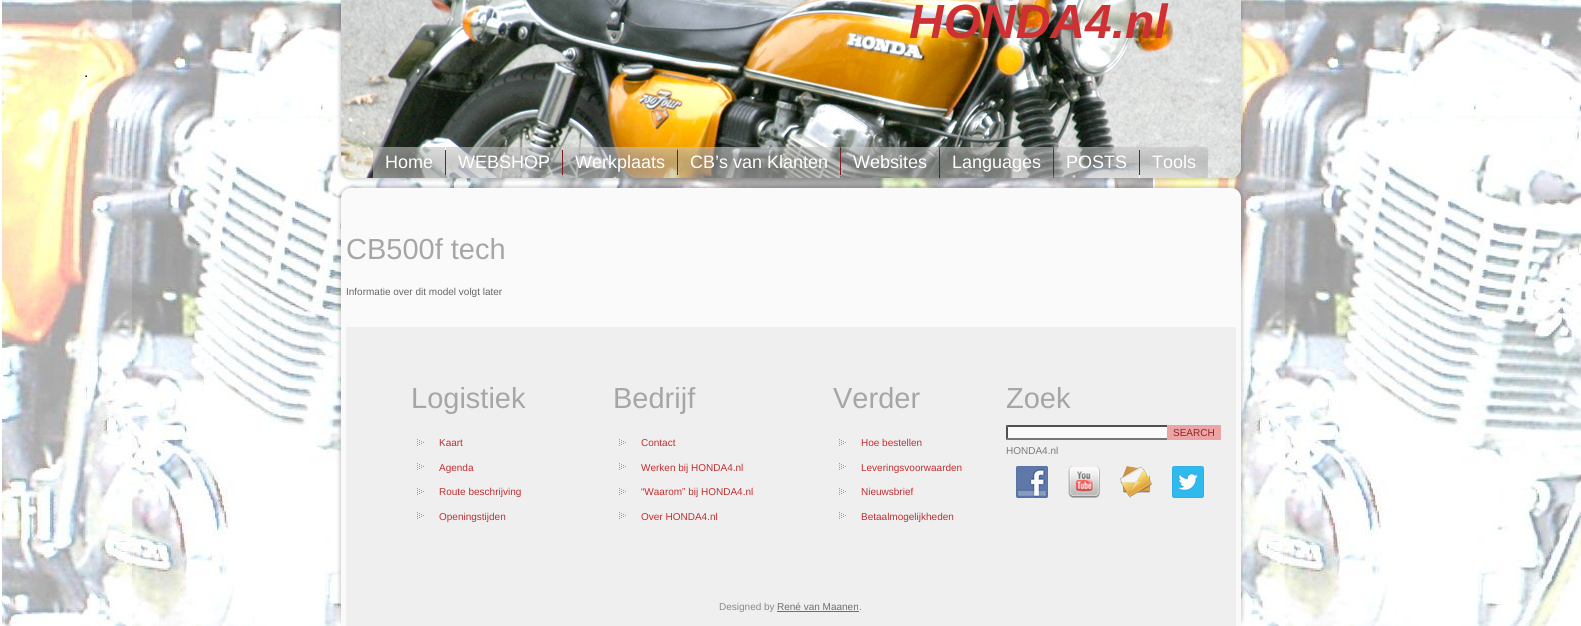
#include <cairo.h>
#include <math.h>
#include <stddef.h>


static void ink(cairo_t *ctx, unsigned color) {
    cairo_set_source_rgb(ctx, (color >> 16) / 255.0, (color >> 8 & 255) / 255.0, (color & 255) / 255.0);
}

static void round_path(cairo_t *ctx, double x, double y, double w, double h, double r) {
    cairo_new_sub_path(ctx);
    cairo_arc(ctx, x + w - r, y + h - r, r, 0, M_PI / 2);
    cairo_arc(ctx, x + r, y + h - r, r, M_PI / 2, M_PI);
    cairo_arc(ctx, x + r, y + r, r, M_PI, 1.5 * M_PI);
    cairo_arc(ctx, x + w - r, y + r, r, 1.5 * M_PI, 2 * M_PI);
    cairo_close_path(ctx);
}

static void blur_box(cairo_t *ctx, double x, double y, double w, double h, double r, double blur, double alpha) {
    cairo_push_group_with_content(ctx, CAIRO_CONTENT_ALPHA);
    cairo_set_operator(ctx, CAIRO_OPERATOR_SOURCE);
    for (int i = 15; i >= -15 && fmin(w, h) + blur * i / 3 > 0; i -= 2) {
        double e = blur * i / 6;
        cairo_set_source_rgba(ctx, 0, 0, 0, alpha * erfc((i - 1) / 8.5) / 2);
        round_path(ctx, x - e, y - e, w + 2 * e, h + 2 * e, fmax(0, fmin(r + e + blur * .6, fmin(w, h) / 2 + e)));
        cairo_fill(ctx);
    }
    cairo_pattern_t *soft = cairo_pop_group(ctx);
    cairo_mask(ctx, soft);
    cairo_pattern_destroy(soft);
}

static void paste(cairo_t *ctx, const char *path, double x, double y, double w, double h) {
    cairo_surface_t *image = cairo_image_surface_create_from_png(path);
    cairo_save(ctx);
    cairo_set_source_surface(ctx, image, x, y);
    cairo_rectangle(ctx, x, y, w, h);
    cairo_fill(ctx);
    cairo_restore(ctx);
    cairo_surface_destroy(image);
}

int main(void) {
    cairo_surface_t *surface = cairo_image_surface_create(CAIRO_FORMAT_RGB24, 1581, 626);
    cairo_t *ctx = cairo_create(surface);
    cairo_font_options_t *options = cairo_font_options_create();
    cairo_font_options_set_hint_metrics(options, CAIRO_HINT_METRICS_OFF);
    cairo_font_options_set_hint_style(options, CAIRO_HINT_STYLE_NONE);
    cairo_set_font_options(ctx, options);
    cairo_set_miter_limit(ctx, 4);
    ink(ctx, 0xFFFFFF);
    cairo_paint(ctx);
    paste(ctx, "media/1.png", 0, 0, 1581, 626);
    ink(ctx, 0x000000);
    blur_box(ctx, 339, -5, 904, 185, 12, 1.5, 0.15);
    paste(ctx, "media/2.png", 341, 0, 900, 178);
    cairo_select_font_face(ctx, "Liberation Sans", CAIRO_FONT_SLANT_ITALIC, CAIRO_FONT_WEIGHT_BOLD);
    cairo_set_font_size(ctx, 48);
    ink(ctx, 0xCF3033);
    cairo_move_to(ctx, 909, 38);
    cairo_show_text(ctx, "HONDA4.nl");
    cairo_select_font_face(ctx, "Liberation Sans", CAIRO_FONT_SLANT_NORMAL, CAIRO_FONT_WEIGHT_NORMAL);
    cairo_set_font_size(ctx, 18);
    ink(ctx, 0xFFFFFF);
    cairo_move_to(ctx, 385, 168);
    cairo_show_text(ctx, "Home");
    ink(ctx, 0x7C1D1F);
    cairo_rectangle(ctx, 445, 150, 1, 25);
    cairo_fill(ctx);
    ink(ctx, 0xFFFFFF);
    cairo_move_to(ctx, 458, 168);
    cairo_show_text(ctx, "WEBSHOP");
    ink(ctx, 0x7C1D1F);
    cairo_rectangle(ctx, 562, 150, 1, 25);
    cairo_fill(ctx);
    ink(ctx, 0xFFFFFF);
    cairo_move_to(ctx, 575, 168);
    cairo_show_text(ctx, "Werkplaats");
    ink(ctx, 0x7C1D1F);
    cairo_rectangle(ctx, 677, 150, 1, 25);
    cairo_fill(ctx);
    ink(ctx, 0xFFFFFF);
    cairo_move_to(ctx, 690, 168);
    cairo_show_text(ctx, "CB’s van Klanten");
    ink(ctx, 0x7C1D1F);
    cairo_rectangle(ctx, 840, 150, 1, 25);
    cairo_fill(ctx);
    ink(ctx, 0xFFFFFF);
    cairo_move_to(ctx, 853, 168);
    cairo_show_text(ctx, "Websites");
    ink(ctx, 0x7C1D1F);
    cairo_rectangle(ctx, 939, 150, 1, 25);
    cairo_fill(ctx);
    ink(ctx, 0xFFFFFF);
    cairo_move_to(ctx, 952, 168);
    cairo_show_text(ctx, "Languages");
    ink(ctx, 0x7C1D1F);
    cairo_rectangle(ctx, 1053, 150, 1, 25);
    cairo_fill(ctx);
    ink(ctx, 0xFFFFFF);
    cairo_move_to(ctx, 1066, 168);
    cairo_show_text(ctx, "POSTS");
    ink(ctx, 0x7C1D1F);
    cairo_rectangle(ctx, 1139, 150, 1, 25);
    cairo_fill(ctx);
    ink(ctx, 0xFFFFFF);
    cairo_move_to(ctx, 1152, 168);
    cairo_show_text(ctx, "Tools");
    ink(ctx, 0x000000);
    blur_box(ctx, 339, 186, 904, 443, 12, 1.5, 0.15);
    ink(ctx, 0xFAFAFA);
    cairo_new_path(ctx);
    cairo_move_to(ctx, 351, 188);
    cairo_line_to(ctx, 1231, 188);
    cairo_curve_to(ctx, 1236.5, 188, 1241, 192.5, 1241, 198);
    cairo_line_to(ctx, 1241, 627);
    cairo_line_to(ctx, 341, 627);
    cairo_line_to(ctx, 341, 198);
    cairo_curve_to(ctx, 341, 192.5, 345.5, 188, 351, 188);
    cairo_close_path(ctx);
    cairo_fill(ctx);
    cairo_set_font_size(ctx, 29);
    ink(ctx, 0xA6A6A6);
    cairo_move_to(ctx, 346, 259);
    cairo_show_text(ctx, "CB500f tech");
    cairo_set_font_size(ctx, 10);
    ink(ctx, 0x666666);
    cairo_move_to(ctx, 346, 295);
    cairo_show_text(ctx, "Informatie over dit model volgt later");
    ink(ctx, 0xEFEFEF);
    cairo_rectangle(ctx, 346, 327, 890, 299);
    cairo_fill(ctx);
    cairo_set_font_size(ctx, 29);
    ink(ctx, 0xA6A6A6);
    cairo_move_to(ctx, 411, 408);
    cairo_show_text(ctx, "Logistiek");
    paste(ctx, "media/3.png", 417, 439, 7, 7);
    cairo_set_font_size(ctx, 10);
    ink(ctx, 0xC22E30);
    cairo_move_to(ctx, 439, 446);
    cairo_show_text(ctx, "Kaart");
    paste(ctx, "media/3.png", 417, 463, 7, 7);
    cairo_move_to(ctx, 439, 471);
    cairo_show_text(ctx, "Agenda");
    paste(ctx, "media/3.png", 417, 488, 7, 7);
    cairo_move_to(ctx, 439, 495);
    cairo_show_text(ctx, "Route beschrijving");
    paste(ctx, "media/3.png", 417, 512, 7, 7);
    cairo_move_to(ctx, 439, 520);
    cairo_show_text(ctx, "Openingstijden");
    cairo_set_font_size(ctx, 29);
    ink(ctx, 0xA6A6A6);
    cairo_move_to(ctx, 613, 408);
    cairo_show_text(ctx, "Bedrijf");
    paste(ctx, "media/3.png", 619, 439, 7, 7);
    cairo_set_font_size(ctx, 10);
    ink(ctx, 0xC22E30);
    cairo_move_to(ctx, 641, 446);
    cairo_show_text(ctx, "Contact");
    paste(ctx, "media/3.png", 619, 463, 7, 7);
    cairo_move_to(ctx, 641, 471);
    cairo_show_text(ctx, "Werken bij HONDA4.nl");
    paste(ctx, "media/3.png", 619, 488, 7, 7);
    cairo_move_to(ctx, 641, 495);
    cairo_show_text(ctx, "“Waarom” bij HONDA4.nl");
    paste(ctx, "media/3.png", 619, 512, 7, 7);
    cairo_move_to(ctx, 641, 520);
    cairo_show_text(ctx, "Over HONDA4.nl");
    cairo_set_font_size(ctx, 29);
    ink(ctx, 0xA6A6A6);
    cairo_move_to(ctx, 833, 408);
    cairo_show_text(ctx, "Verder");
    paste(ctx, "media/3.png", 839, 439, 7, 7);
    cairo_set_font_size(ctx, 10);
    ink(ctx, 0xC22E30);
    cairo_move_to(ctx, 861, 446);
    cairo_show_text(ctx, "Hoe bestellen");
    paste(ctx, "media/3.png", 839, 463, 7, 7);
    cairo_move_to(ctx, 861, 471);
    cairo_show_text(ctx, "Leveringsvoorwaarden");
    paste(ctx, "media/3.png", 839, 488, 7, 7);
    cairo_move_to(ctx, 861, 495);
    cairo_show_text(ctx, "Nieuwsbrief");
    paste(ctx, "media/3.png", 839, 512, 7, 7);
    cairo_move_to(ctx, 861, 520);
    cairo_show_text(ctx, "Betaalmogelijkheden");
    cairo_set_font_size(ctx, 29);
    ink(ctx, 0xA6A6A6);
    cairo_move_to(ctx, 1006, 408);
    cairo_show_text(ctx, "Zoek");
    ink(ctx, 0xF9FAFB);
    cairo_rectangle(ctx, 1006, 425, 161, 15);
    cairo_fill(ctx);
    ink(ctx, 0x4F4F4F);
    cairo_new_path(ctx);
    cairo_move_to(ctx, 1006, 425);
    cairo_line_to(ctx, 1221, 425);
    cairo_line_to(ctx, 1219, 427);
    cairo_line_to(ctx, 1008, 427);
    cairo_close_path(ctx);
    cairo_fill(ctx);
    ink(ctx, 0x767676);
    cairo_new_path(ctx);
    cairo_move_to(ctx, 1221, 440);
    cairo_line_to(ctx, 1006, 440);
    cairo_line_to(ctx, 1008, 438);
    cairo_line_to(ctx, 1219, 438);
    cairo_close_path(ctx);
    cairo_fill(ctx);
    ink(ctx, 0x4F4F4F);
    cairo_new_path(ctx);
    cairo_move_to(ctx, 1006, 440);
    cairo_line_to(ctx, 1006, 425);
    cairo_line_to(ctx, 1008, 427);
    cairo_line_to(ctx, 1008, 438);
    cairo_close_path(ctx);
    cairo_fill(ctx);
    ink(ctx, 0xEAA4A5);
    cairo_rectangle(ctx, 1167, 425, 54, 15);
    cairo_fill(ctx);
    cairo_set_font_size(ctx, 10);
    ink(ctx, 0x912224);
    cairo_move_to(ctx, 1173, 436);
    cairo_show_text(ctx, "SEARCH");
    ink(ctx, 0x7A7A7A);
    cairo_move_to(ctx, 1006, 454);
    cairo_show_text(ctx, "HONDA4.nl");
    paste(ctx, "media/4.png", 1016, 466, 32, 32);
    paste(ctx, "media/5.png", 1068, 466, 32, 32);
    paste(ctx, "media/6.png", 1120, 466, 32, 32);
    paste(ctx, "media/7.png", 1172, 466, 32, 32);
    ink(ctx, 0x8A8A8A);
    cairo_move_to(ctx, 719, 610);
    cairo_show_text(ctx, "Designed by");
    ink(ctx, 0x6E6E6E);
    cairo_move_to(ctx, 777, 610);
    cairo_show_text(ctx, "René van Maanen");
    ink(ctx, 0x8A8A8A);
    cairo_move_to(ctx, 859, 610);
    cairo_show_text(ctx, ".");
    ink(ctx, 0x6E6E6E);
    cairo_rectangle(ctx, 777, 611, 82, 1);
    cairo_fill(ctx);
    cairo_surface_write_to_png(surface, "image.png");
    cairo_font_options_destroy(options);
    cairo_destroy(ctx);
    cairo_surface_destroy(surface);
    return 0;
}
